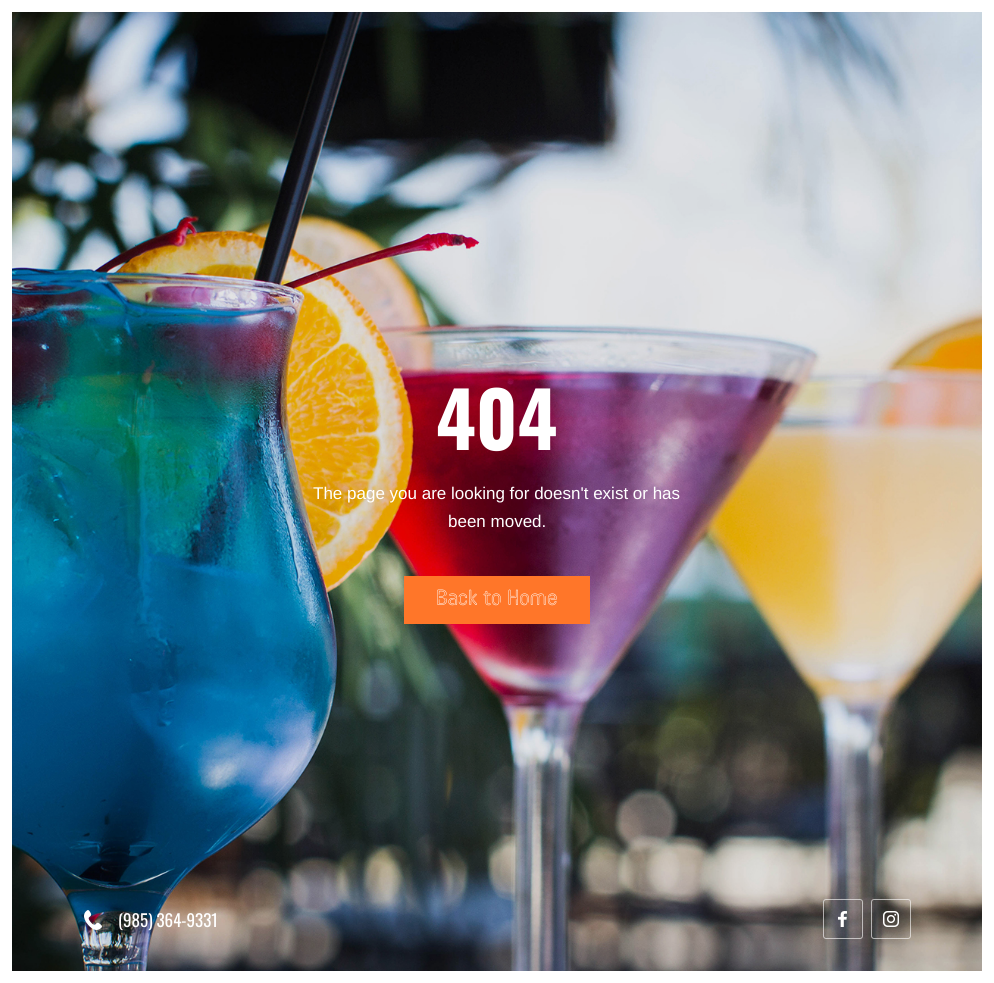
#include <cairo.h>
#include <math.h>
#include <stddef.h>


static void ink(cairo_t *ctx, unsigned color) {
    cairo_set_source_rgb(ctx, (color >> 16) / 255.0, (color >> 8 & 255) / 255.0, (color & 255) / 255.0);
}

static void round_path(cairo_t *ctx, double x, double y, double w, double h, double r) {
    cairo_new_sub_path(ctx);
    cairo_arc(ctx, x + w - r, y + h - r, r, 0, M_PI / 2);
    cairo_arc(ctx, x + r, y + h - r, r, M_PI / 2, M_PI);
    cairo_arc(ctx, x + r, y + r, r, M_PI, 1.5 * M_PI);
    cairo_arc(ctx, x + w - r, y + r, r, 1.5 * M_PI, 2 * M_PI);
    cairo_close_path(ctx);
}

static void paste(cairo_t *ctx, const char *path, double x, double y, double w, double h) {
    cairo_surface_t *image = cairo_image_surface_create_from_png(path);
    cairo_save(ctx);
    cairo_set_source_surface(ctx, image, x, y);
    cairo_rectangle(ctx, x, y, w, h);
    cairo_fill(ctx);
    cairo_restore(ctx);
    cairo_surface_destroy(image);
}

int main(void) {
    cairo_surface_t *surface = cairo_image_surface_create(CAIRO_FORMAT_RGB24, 994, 983);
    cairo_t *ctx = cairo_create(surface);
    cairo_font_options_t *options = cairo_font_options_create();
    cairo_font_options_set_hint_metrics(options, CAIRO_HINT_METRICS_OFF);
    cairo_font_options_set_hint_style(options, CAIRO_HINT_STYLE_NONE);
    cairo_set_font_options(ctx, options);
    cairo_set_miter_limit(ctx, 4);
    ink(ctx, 0xFFFFFF);
    cairo_paint(ctx);
    paste(ctx, "media/1.png", 12, 12, 970, 959);
    cairo_select_font_face(ctx, "Oswald", CAIRO_FONT_SLANT_NORMAL, CAIRO_FONT_WEIGHT_BOLD);
    cairo_set_font_size(ctx, 76);
    ink(ctx, 0xFFFFFF);
    cairo_move_to(ctx, 436, 450);
    cairo_show_text(ctx, "404");
    cairo_select_font_face(ctx, "Liberation Sans", CAIRO_FONT_SLANT_NORMAL, CAIRO_FONT_WEIGHT_NORMAL);
    cairo_set_font_size(ctx, 17);
    cairo_move_to(ctx, 313, 499);
    cairo_show_text(ctx, "The page you are looking for doesn't exist or has");
    cairo_move_to(ctx, 448, 527);
    cairo_show_text(ctx, "been moved.");
    ink(ctx, 0xFF7629);
    cairo_rectangle(ctx, 404, 576, 186, 48);
    cairo_fill(ctx);
    cairo_select_font_face(ctx, "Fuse", CAIRO_FONT_SLANT_NORMAL, CAIRO_FONT_WEIGHT_NORMAL);
    cairo_set_font_size(ctx, 22);
    ink(ctx, 0xFFFFFF);
    cairo_move_to(ctx, 436, 605);
    cairo_show_text(ctx, "Back to Home");
    paste(ctx, "media/2.png", 84, 910, 18, 20);
    cairo_select_font_face(ctx, "Oswald", CAIRO_FONT_SLANT_NORMAL, CAIRO_FONT_WEIGHT_NORMAL);
    cairo_set_font_size(ctx, 17);
    cairo_move_to(ctx, 118, 927);
    cairo_show_text(ctx, "(985) 364-9331");
    round_path(ctx, 823.5, 899.5, 39, 39, 2.5);
    cairo_set_source_rgba(ctx, 1, 1, 1, 0.6);
    cairo_set_line_width(ctx, 1);
    cairo_stroke(ctx);
    paste(ctx, "media/3.png", 838, 911, 9, 16);
    round_path(ctx, 871.5, 899.5, 39, 39, 2.5);
    cairo_stroke(ctx);
    paste(ctx, "media/4.png", 883, 911, 16, 16);
    cairo_surface_write_to_png(surface, "image.png");
    cairo_font_options_destroy(options);
    cairo_destroy(ctx);
    cairo_surface_destroy(surface);
    return 0;
}
